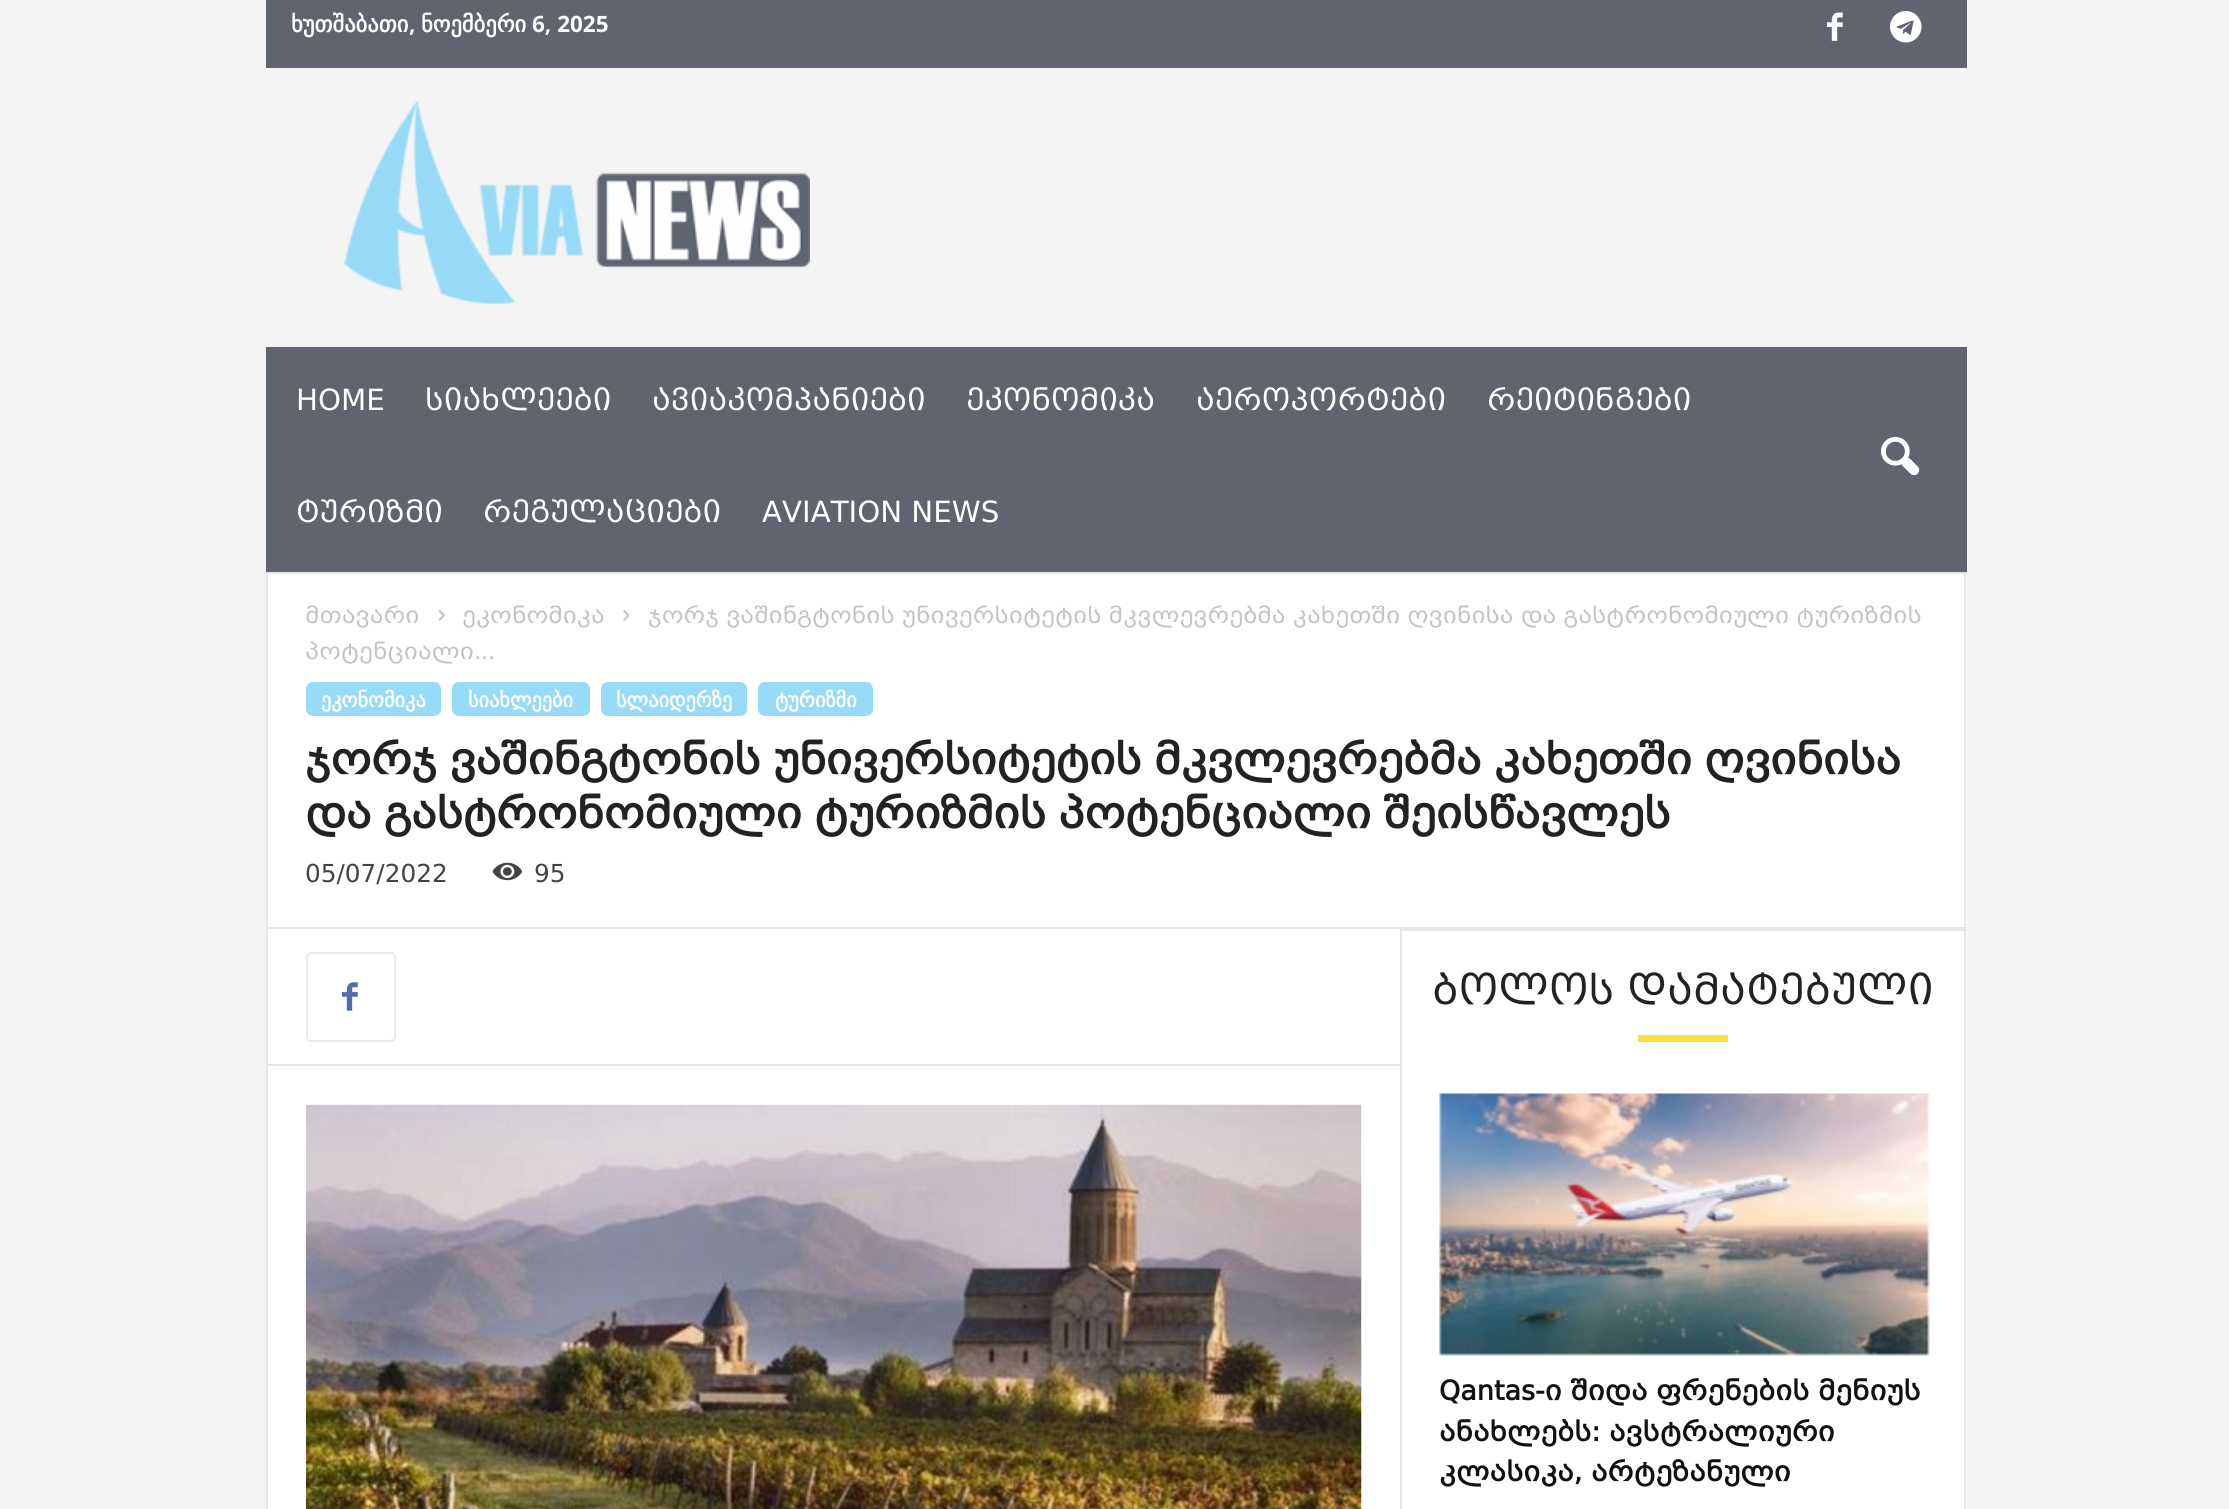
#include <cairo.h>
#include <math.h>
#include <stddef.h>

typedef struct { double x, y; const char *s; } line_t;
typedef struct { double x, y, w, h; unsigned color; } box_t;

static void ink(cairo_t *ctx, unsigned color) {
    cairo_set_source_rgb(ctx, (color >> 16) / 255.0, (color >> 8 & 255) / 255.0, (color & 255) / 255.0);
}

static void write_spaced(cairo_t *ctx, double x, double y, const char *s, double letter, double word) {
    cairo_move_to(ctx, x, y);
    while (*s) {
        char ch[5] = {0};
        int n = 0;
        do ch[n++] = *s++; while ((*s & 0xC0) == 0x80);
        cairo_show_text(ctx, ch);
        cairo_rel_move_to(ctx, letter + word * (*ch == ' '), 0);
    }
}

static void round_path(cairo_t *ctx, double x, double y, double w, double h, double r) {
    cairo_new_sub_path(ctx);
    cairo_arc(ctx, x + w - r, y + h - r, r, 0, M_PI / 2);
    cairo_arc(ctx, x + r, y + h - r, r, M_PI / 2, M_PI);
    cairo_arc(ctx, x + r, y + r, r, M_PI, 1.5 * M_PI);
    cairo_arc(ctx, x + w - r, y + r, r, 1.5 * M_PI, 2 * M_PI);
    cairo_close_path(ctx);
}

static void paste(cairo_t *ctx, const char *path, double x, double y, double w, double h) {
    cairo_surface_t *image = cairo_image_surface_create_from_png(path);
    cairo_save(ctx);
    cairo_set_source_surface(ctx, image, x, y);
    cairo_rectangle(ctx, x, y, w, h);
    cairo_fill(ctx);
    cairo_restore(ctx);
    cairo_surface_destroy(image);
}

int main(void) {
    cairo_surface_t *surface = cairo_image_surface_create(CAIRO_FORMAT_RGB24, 2229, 1509);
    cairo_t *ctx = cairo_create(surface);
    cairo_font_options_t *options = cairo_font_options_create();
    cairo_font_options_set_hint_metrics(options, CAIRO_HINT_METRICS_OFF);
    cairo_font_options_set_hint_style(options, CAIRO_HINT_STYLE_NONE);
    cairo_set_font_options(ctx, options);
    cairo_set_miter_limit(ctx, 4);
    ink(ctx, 0xF4F4F4);
    cairo_paint(ctx);
    ink(ctx, 0x606470);
    cairo_rectangle(ctx, 266, 0, 1701, 68);
    cairo_fill(ctx);
    cairo_select_font_face(ctx, "DejaVu Sans", CAIRO_FONT_SLANT_NORMAL, CAIRO_FONT_WEIGHT_BOLD);
    cairo_set_font_size(ctx, 22.5);
    ink(ctx, 0xFFFFFF);
    cairo_move_to(ctx, 291, 32);
    cairo_show_text(ctx, "ხუთშაბათი");
    cairo_select_font_face(ctx, "Open Sans", CAIRO_FONT_SLANT_NORMAL, CAIRO_FONT_WEIGHT_BOLD);
    cairo_move_to(ctx, 409, 32);
    cairo_show_text(ctx, ",");
    cairo_select_font_face(ctx, "DejaVu Sans", CAIRO_FONT_SLANT_NORMAL, CAIRO_FONT_WEIGHT_BOLD);
    cairo_move_to(ctx, 421, 32);
    cairo_show_text(ctx, "ნოემბერი");
    cairo_select_font_face(ctx, "Open Sans", CAIRO_FONT_SLANT_NORMAL, CAIRO_FONT_WEIGHT_BOLD);
    cairo_move_to(ctx, 532, 32);
    cairo_show_text(ctx, "6, 2025");
    paste(ctx, "media/1.png", 1827, 12, 16, 29);
    paste(ctx, "media/2.png", 1890, 11, 32, 32);
    paste(ctx, "media/3.png", 344, 101, 466, 203);
    ink(ctx, 0x606470);
    cairo_rectangle(ctx, 266, 347, 1701, 225);
    cairo_fill(ctx);
    ink(ctx, 0xE6E6E6);
    cairo_rectangle(ctx, 266, 572, 1701, 2);
    cairo_fill(ctx);
    cairo_select_font_face(ctx, "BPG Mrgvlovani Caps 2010", CAIRO_FONT_SLANT_NORMAL, CAIRO_FONT_WEIGHT_NORMAL);
    cairo_set_font_size(ctx, 29.25);
    ink(ctx, 0xFFFFFF);
    {
        static const line_t items[] = {
            {296, 410, "HOME"},
            {425, 410, "სიახლეები"},
            {652, 410, "ავიაკომპანიები"},
            {966, 410, "ეკონომიკა"},
            {1196, 410, "აეროპორტები"},
            {1487, 410, "რეიტინგები"},
            {296, 522, "ტურიზმი"},
            {483, 522, "რეგულაციები"},
            {762, 522, "AVIATION NEWS"},
        };
        for (size_t i = 0; i < sizeof items / sizeof *items; i++) {
            cairo_move_to(ctx, items[i].x, items[i].y);
            cairo_show_text(ctx, items[i].s);
        }
    }
    paste(ctx, "media/4.png", 1881, 436, 39, 40);
    cairo_rectangle(ctx, 268, 574, 1699, 935);
    cairo_fill(ctx);
    ink(ctx, 0xE6E6E6);
    cairo_rectangle(ctx, 266, 574, 2, 935);
    cairo_fill(ctx);
    cairo_select_font_face(ctx, "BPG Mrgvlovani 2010", CAIRO_FONT_SLANT_NORMAL, CAIRO_FONT_WEIGHT_NORMAL);
    cairo_set_font_size(ctx, 22.5);
    ink(ctx, 0xC3C3C3);
    cairo_move_to(ctx, 305, 623);
    cairo_show_text(ctx, "მთავარი");
    paste(ctx, "media/5.png", 438, 610, 7, 11);
    cairo_move_to(ctx, 462, 623);
    cairo_show_text(ctx, "ეკონომიკა");
    paste(ctx, "media/6.png", 623, 610, 7, 11);
    cairo_move_to(ctx, 648, 623);
    cairo_show_text(ctx, "ჯორჯ ვაშინგტონის უნივერსიტეტის მკვლევრებმა კახეთში ღვინისა და გასტრონომიული ტურიზმის");
    cairo_move_to(ctx, 305, 659);
    cairo_show_text(ctx, "პოტენციალი...");
    ink(ctx, 0x97DBF8);
    round_path(ctx, 306, 682, 135, 34, 7);
    cairo_fill(ctx);
    cairo_select_font_face(ctx, "DejaVu Sans", CAIRO_FONT_SLANT_NORMAL, CAIRO_FONT_WEIGHT_BOLD);
    cairo_set_font_size(ctx, 20.25);
    ink(ctx, 0xFFFFFF);
    cairo_move_to(ctx, 321, 707);
    cairo_show_text(ctx, "ეკონომიკა");
    ink(ctx, 0x97DBF8);
    round_path(ctx, 452, 682, 138, 34, 7);
    cairo_fill(ctx);
    ink(ctx, 0xFFFFFF);
    cairo_move_to(ctx, 468, 707);
    cairo_show_text(ctx, "სიახლეები");
    ink(ctx, 0x97DBF8);
    round_path(ctx, 601, 682, 146, 34, 7);
    cairo_fill(ctx);
    ink(ctx, 0xFFFFFF);
    cairo_move_to(ctx, 616, 707);
    cairo_show_text(ctx, "სლაიდერზე");
    ink(ctx, 0x97DBF8);
    round_path(ctx, 758, 682, 115, 34, 7);
    cairo_fill(ctx);
    ink(ctx, 0xFFFFFF);
    cairo_move_to(ctx, 775, 707);
    cairo_show_text(ctx, "ტურიზმი");
    cairo_select_font_face(ctx, "BPG Mrgvlovani 2010", CAIRO_FONT_SLANT_NORMAL, CAIRO_FONT_WEIGHT_BOLD);
    cairo_set_font_size(ctx, 42.75);
    ink(ctx, 0x222222);
    write_spaced(ctx, 305, 774, "ჯორჯ ვაშინგტონის უნივერსიტეტის მკვლევრებმა კახეთში ღვინისა", -0.85, 0);
    write_spaced(ctx, 305, 828, "და გასტრონომიული ტურიზმის პოტენციალი შეისწავლეს", -0.85, 0);
    cairo_select_font_face(ctx, "BPG Mrgvlovani 2010", CAIRO_FONT_SLANT_NORMAL, CAIRO_FONT_WEIGHT_NORMAL);
    cairo_set_font_size(ctx, 24.75);
    ink(ctx, 0x444444);
    cairo_move_to(ctx, 305, 882);
    cairo_show_text(ctx, "05/07/2022");
    paste(ctx, "media/7.png", 492, 862, 30, 19);
    cairo_move_to(ctx, 534, 882);
    cairo_show_text(ctx, "95");
    {
        static const box_t items[] = {
            {1400, 927, 2, 582, 0xE6E6E6},
            {1964, 574, 2, 935, 0xE6E6E6},
            {268, 927, 1699, 2, 0xE6E6E6},
        };
        for (size_t i = 0; i < sizeof items / sizeof *items; i++) {
            ink(ctx, items[i].color);
            cairo_rectangle(ctx, items[i].x, items[i].y, items[i].w, items[i].h);
            cairo_fill(ctx);
        }
    }
    round_path(ctx, 307, 953, 88, 88, 4);
    ink(ctx, 0xE9E9E9);
    cairo_stroke(ctx);
    paste(ctx, "media/8.png", 342, 982, 16, 29);
    ink(ctx, 0xE6E6E6);
    cairo_rectangle(ctx, 268, 1064, 1132, 2);
    cairo_fill(ctx);
    paste(ctx, "media/9.png", 306, 1104, 1056, 405);
    cairo_rectangle(ctx, 1402, 929, 565, 2);
    cairo_fill(ctx);
    cairo_select_font_face(ctx, "BPG Mrgvlovani Caps 2010", CAIRO_FONT_SLANT_NORMAL, CAIRO_FONT_WEIGHT_NORMAL);
    cairo_set_font_size(ctx, 40.5);
    ink(ctx, 0x222222);
    cairo_move_to(ctx, 1432, 1004);
    cairo_show_text(ctx, "ბოლოს დამატებული");
    ink(ctx, 0xFFDF3F);
    cairo_rectangle(ctx, 1638, 1035, 90, 7);
    cairo_fill(ctx);
    paste(ctx, "media/10.png", 1439, 1093, 491, 263);
    cairo_select_font_face(ctx, "BPG Mrgvlovani 2010", CAIRO_FONT_SLANT_NORMAL, CAIRO_FONT_WEIGHT_BOLD);
    cairo_set_font_size(ctx, 27);
    ink(ctx, 0x111111);
    {
        static const line_t items[] = {
            {1439, 1400, "Qantas-ი შიდა ფრენების მენიუს"},
            {1439, 1441, "ანახლებს: ავსტრალიური"},
            {1439, 1481, "კლასიკა, არტეზანული"},
        };
        for (size_t i = 0; i < sizeof items / sizeof *items; i++) {
            cairo_move_to(ctx, items[i].x, items[i].y);
            cairo_show_text(ctx, items[i].s);
        }
    }
    cairo_surface_write_to_png(surface, "image.png");
    cairo_font_options_destroy(options);
    cairo_destroy(ctx);
    cairo_surface_destroy(surface);
    return 0;
}
